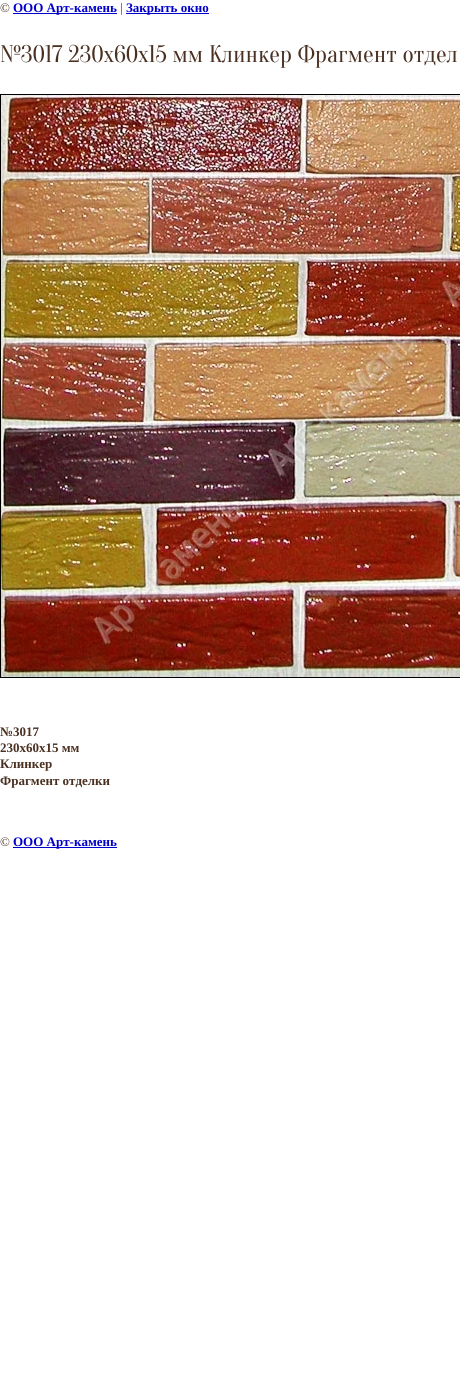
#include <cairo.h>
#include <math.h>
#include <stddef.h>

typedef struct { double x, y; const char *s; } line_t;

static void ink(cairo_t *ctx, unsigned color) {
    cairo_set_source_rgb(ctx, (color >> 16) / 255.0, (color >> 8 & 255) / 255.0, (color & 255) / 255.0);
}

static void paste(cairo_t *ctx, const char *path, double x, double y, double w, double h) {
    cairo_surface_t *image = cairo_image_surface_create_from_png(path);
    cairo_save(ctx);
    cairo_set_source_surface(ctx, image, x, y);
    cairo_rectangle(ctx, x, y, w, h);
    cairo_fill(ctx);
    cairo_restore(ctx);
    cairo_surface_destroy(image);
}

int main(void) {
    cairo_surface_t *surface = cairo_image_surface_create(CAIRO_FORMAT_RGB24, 460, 1399);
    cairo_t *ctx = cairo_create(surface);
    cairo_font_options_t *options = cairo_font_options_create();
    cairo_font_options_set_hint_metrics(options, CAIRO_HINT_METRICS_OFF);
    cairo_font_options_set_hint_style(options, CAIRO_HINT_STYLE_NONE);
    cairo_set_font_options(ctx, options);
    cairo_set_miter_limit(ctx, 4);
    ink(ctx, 0xFFFFFF);
    cairo_paint(ctx);
    cairo_select_font_face(ctx, "Liberation Serif", CAIRO_FONT_SLANT_NORMAL, CAIRO_FONT_WEIGHT_NORMAL);
    cairo_set_font_size(ctx, 13);
    ink(ctx, 0x4A3021);
    cairo_move_to(ctx, 0, 12);
    cairo_show_text(ctx, "©");
    ink(ctx, 0x0000CC);
    cairo_rectangle(ctx, 13, 13, 104, 1);
    cairo_fill(ctx);
    cairo_select_font_face(ctx, "Liberation Serif", CAIRO_FONT_SLANT_NORMAL, CAIRO_FONT_WEIGHT_BOLD);
    cairo_move_to(ctx, 13, 12);
    cairo_show_text(ctx, "ООО Арт-камень");
    cairo_select_font_face(ctx, "Liberation Serif", CAIRO_FONT_SLANT_NORMAL, CAIRO_FONT_WEIGHT_NORMAL);
    ink(ctx, 0x4A3021);
    cairo_move_to(ctx, 120, 12);
    cairo_show_text(ctx, "|");
    ink(ctx, 0x0000CC);
    cairo_rectangle(ctx, 126, 13, 83, 1);
    cairo_fill(ctx);
    cairo_select_font_face(ctx, "Liberation Serif", CAIRO_FONT_SLANT_NORMAL, CAIRO_FONT_WEIGHT_BOLD);
    cairo_move_to(ctx, 126, 12);
    cairo_show_text(ctx, "Закрыть окно");
    cairo_select_font_face(ctx, "Oranienbaum", CAIRO_FONT_SLANT_NORMAL, CAIRO_FONT_WEIGHT_NORMAL);
    cairo_set_font_size(ctx, 24);
    ink(ctx, 0x4A3021);
    cairo_move_to(ctx, 0, 62);
    cairo_show_text(ctx, "№3017 230x60x15 мм Клинкер Фрагмент отдел");
    cairo_rectangle(ctx, 0.5, 94.5, 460, 583);
    ink(ctx, 0x000000);
    cairo_set_line_width(ctx, 1);
    cairo_stroke(ctx);
    paste(ctx, "media/1.png", 1, 95, 459, 582);
    cairo_select_font_face(ctx, "Liberation Serif", CAIRO_FONT_SLANT_NORMAL, CAIRO_FONT_WEIGHT_BOLD);
    cairo_set_font_size(ctx, 13);
    ink(ctx, 0x4A3021);
    {
        static const line_t items[] = {
            {0, 736, "№3017"},
            {0, 752, "230x60x15 мм"},
            {0, 768, "Клинкер"},
            {0, 785, "Фрагмент отделки"},
        };
        for (size_t i = 0; i < sizeof items / sizeof *items; i++) {
            cairo_move_to(ctx, items[i].x, items[i].y);
            cairo_show_text(ctx, items[i].s);
        }
    }
    cairo_select_font_face(ctx, "Liberation Serif", CAIRO_FONT_SLANT_NORMAL, CAIRO_FONT_WEIGHT_NORMAL);
    cairo_move_to(ctx, 0, 846);
    cairo_show_text(ctx, "©");
    ink(ctx, 0x0000CC);
    cairo_rectangle(ctx, 13, 847, 104, 1);
    cairo_fill(ctx);
    cairo_select_font_face(ctx, "Liberation Serif", CAIRO_FONT_SLANT_NORMAL, CAIRO_FONT_WEIGHT_BOLD);
    cairo_move_to(ctx, 13, 846);
    cairo_show_text(ctx, "ООО Арт-камень");
    cairo_surface_write_to_png(surface, "image.png");
    cairo_font_options_destroy(options);
    cairo_destroy(ctx);
    cairo_surface_destroy(surface);
    return 0;
}
